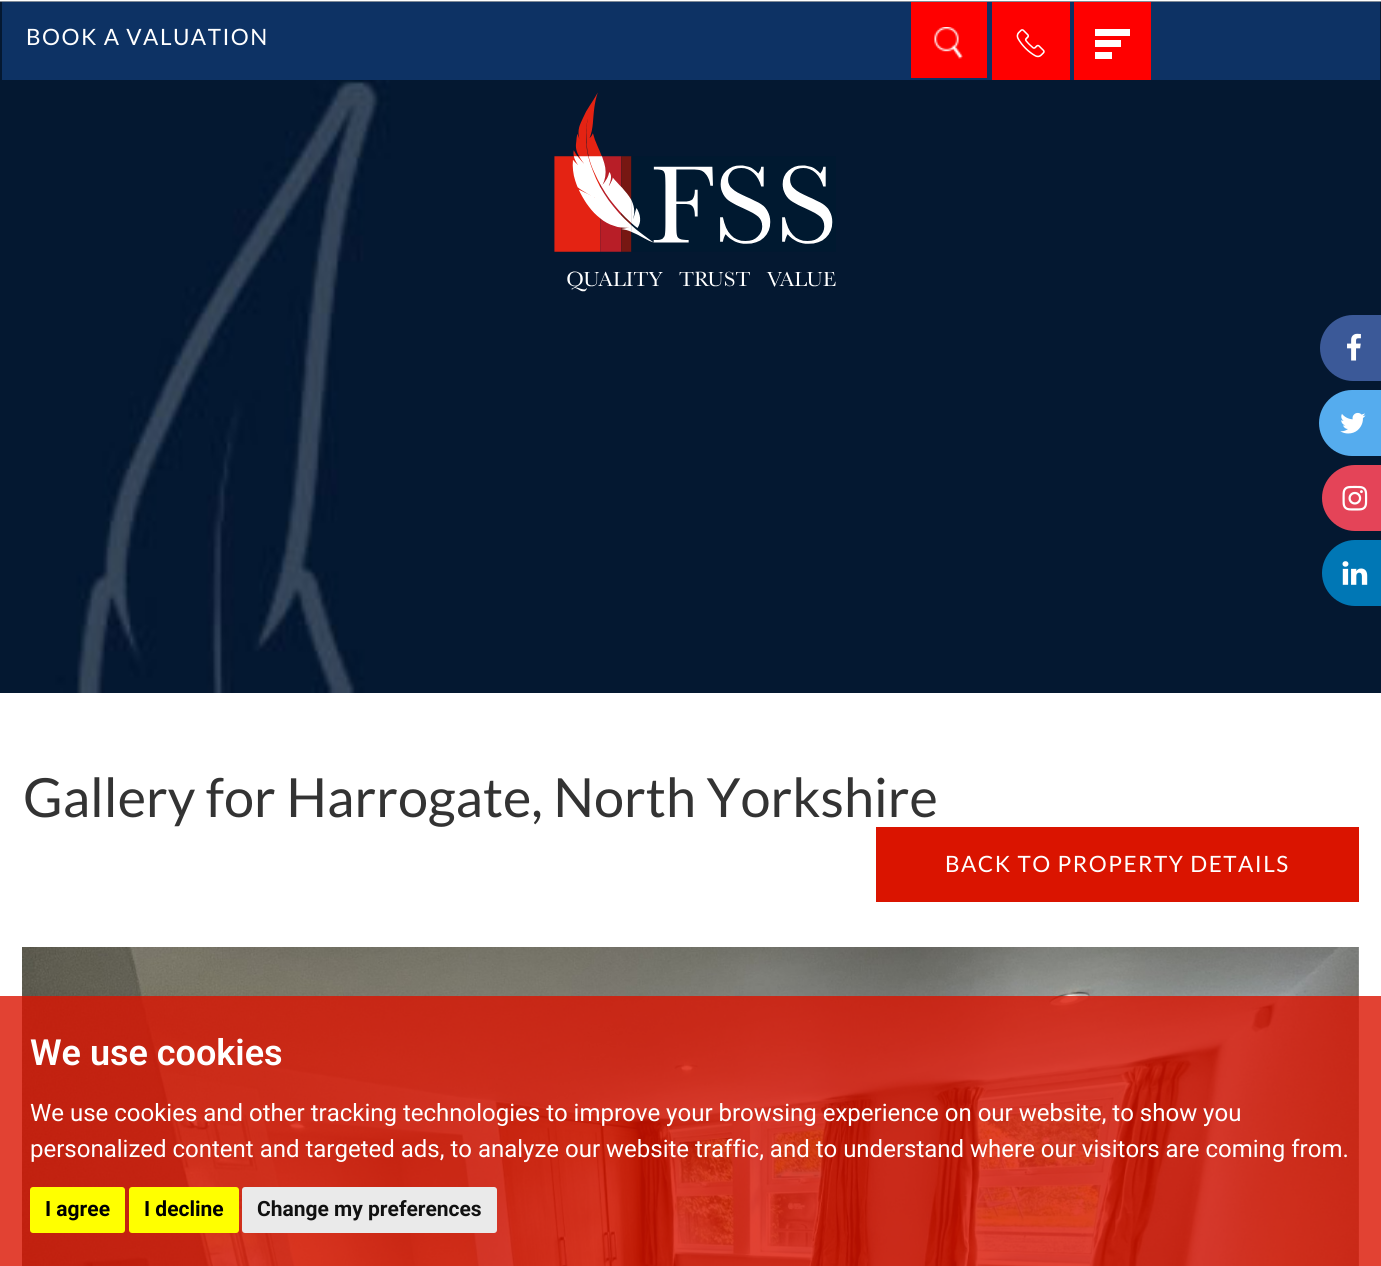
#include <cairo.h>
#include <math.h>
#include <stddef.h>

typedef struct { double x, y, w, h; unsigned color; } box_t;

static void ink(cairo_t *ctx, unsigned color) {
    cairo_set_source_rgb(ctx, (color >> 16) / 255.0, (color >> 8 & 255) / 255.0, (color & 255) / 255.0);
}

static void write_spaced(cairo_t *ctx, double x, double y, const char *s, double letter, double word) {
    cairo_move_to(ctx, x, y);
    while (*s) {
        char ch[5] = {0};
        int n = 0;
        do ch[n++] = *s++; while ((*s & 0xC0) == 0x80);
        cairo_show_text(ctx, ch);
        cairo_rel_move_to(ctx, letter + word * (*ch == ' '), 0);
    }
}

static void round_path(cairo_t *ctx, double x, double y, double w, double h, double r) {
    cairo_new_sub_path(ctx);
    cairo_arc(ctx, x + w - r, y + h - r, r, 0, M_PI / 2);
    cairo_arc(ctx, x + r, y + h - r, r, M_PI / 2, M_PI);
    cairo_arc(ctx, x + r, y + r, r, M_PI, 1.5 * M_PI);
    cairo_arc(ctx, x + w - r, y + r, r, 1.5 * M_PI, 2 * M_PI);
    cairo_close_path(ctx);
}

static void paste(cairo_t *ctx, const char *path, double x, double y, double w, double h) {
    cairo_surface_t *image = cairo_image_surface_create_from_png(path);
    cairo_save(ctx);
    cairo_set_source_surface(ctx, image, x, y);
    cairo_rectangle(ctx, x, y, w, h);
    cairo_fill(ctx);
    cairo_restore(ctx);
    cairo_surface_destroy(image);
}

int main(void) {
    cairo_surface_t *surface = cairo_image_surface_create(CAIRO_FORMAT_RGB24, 1381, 1266);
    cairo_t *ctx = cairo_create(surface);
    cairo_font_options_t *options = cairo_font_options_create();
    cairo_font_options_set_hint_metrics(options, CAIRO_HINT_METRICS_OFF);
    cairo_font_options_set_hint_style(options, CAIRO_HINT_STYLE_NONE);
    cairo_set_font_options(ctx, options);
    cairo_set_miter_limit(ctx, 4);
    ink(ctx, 0xFFFFFF);
    cairo_paint(ctx);
    paste(ctx, "media/1.png", 0, 1, 1381, 692);
    ink(ctx, 0x0D3264);
    cairo_rectangle(ctx, 2, 2, 1378, 78);
    cairo_fill(ctx);
    cairo_select_font_face(ctx, "Lato", CAIRO_FONT_SLANT_NORMAL, CAIRO_FONT_WEIGHT_NORMAL);
    cairo_set_font_size(ctx, 22.5);
    ink(ctx, 0xFFFFFF);
    write_spaced(ctx, 26, 45, "BOOK A VALUATION", 1.5, 0);
    ink(ctx, 0xFF0000);
    cairo_rectangle(ctx, 911, 2, 76, 76);
    cairo_fill(ctx);
    paste(ctx, "media/2.png", 934, 27, 29, 32);
    cairo_rectangle(ctx, 992, 2, 78, 78);
    cairo_fill(ctx);
    paste(ctx, "media/3.png", 1016, 29, 29, 29);
    {
        static const box_t items[] = {
            {1074, 2, 77, 78, 0xFF0000},
            {1095, 29, 35, 7, 0xFFFFFF},
            {1095, 40, 26, 7, 0xFFFFFF},
            {1095, 52, 17, 7, 0xFFFFFF},
        };
        for (size_t i = 0; i < sizeof items / sizeof *items; i++) {
            ink(ctx, items[i].color);
            cairo_rectangle(ctx, items[i].x, items[i].y, items[i].w, items[i].h);
            cairo_fill(ctx);
        }
    }
    paste(ctx, "media/4.png", 554, 92, 282, 200);
    ink(ctx, 0x3B5998);
    cairo_new_path(ctx);
    cairo_move_to(ctx, 1353, 315);
    cairo_line_to(ctx, 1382, 315);
    cairo_line_to(ctx, 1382, 381);
    cairo_line_to(ctx, 1353, 381);
    cairo_curve_to(ctx, 1335, 381, 1320, 366, 1320, 348);
    cairo_curve_to(ctx, 1320, 330, 1335, 315, 1353, 315);
    cairo_close_path(ctx);
    cairo_fill(ctx);
    paste(ctx, "media/5.png", 1347, 333, 14, 28);
    ink(ctx, 0x55ACEE);
    cairo_new_path(ctx);
    cairo_move_to(ctx, 1352, 390);
    cairo_line_to(ctx, 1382, 390);
    cairo_line_to(ctx, 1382, 456);
    cairo_line_to(ctx, 1352, 456);
    cairo_curve_to(ctx, 1334, 456, 1319, 441, 1319, 423);
    cairo_curve_to(ctx, 1319, 405, 1334, 390, 1352, 390);
    cairo_close_path(ctx);
    cairo_fill(ctx);
    paste(ctx, "media/6.png", 1340, 412, 26, 22);
    ink(ctx, 0xE44458);
    cairo_new_path(ctx);
    cairo_move_to(ctx, 1355, 465);
    cairo_line_to(ctx, 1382, 465);
    cairo_line_to(ctx, 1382, 531);
    cairo_line_to(ctx, 1355, 531);
    cairo_curve_to(ctx, 1337, 531, 1322, 516, 1322, 498);
    cairo_curve_to(ctx, 1322, 480, 1337, 465, 1355, 465);
    cairo_close_path(ctx);
    cairo_fill(ctx);
    paste(ctx, "media/7.png", 1342, 485, 26, 26);
    ink(ctx, 0x0077B5);
    cairo_new_path(ctx);
    cairo_move_to(ctx, 1355, 540);
    cairo_line_to(ctx, 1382, 540);
    cairo_line_to(ctx, 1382, 606);
    cairo_line_to(ctx, 1355, 606);
    cairo_curve_to(ctx, 1337, 606, 1322, 591, 1322, 573);
    cairo_curve_to(ctx, 1322, 555, 1337, 540, 1355, 540);
    cairo_close_path(ctx);
    cairo_fill(ctx);
    paste(ctx, "media/8.png", 1342, 561, 26, 24);
    cairo_set_font_size(ctx, 54);
    ink(ctx, 0x333333);
    cairo_move_to(ctx, 23, 817);
    cairo_show_text(ctx, "Gallery for Harrogate, North Yorkshire");
    ink(ctx, 0xDA1400);
    cairo_rectangle(ctx, 876, 827, 483, 75);
    cairo_fill(ctx);
    cairo_set_font_size(ctx, 22.5);
    ink(ctx, 0xFFFFFF);
    write_spaced(ctx, 945, 872, "BACK TO PROPERTY DETAILS", 1.5, 0);
    paste(ctx, "media/9.png", 22, 947, 1337, 319);
    cairo_set_source_rgba(ctx, 0.855, 0.078, 0, 0.8);
    cairo_rectangle(ctx, 0, 996, 1381, 270);
    cairo_fill(ctx);
    cairo_select_font_face(ctx, "Roboto SemiBold", CAIRO_FONT_SLANT_NORMAL, CAIRO_FONT_WEIGHT_NORMAL);
    cairo_set_font_size(ctx, 36);
    ink(ctx, 0xFFFFFF);
    cairo_move_to(ctx, 30, 1065);
    cairo_show_text(ctx, "We use cookies");
    cairo_select_font_face(ctx, "Roboto", CAIRO_FONT_SLANT_NORMAL, CAIRO_FONT_WEIGHT_NORMAL);
    cairo_set_font_size(ctx, 24);
    cairo_move_to(ctx, 30, 1121);
    cairo_show_text(ctx, "We use cookies and other tracking technologies to improve your browsing experience on our website, to show you");
    cairo_move_to(ctx, 30, 1157);
    cairo_show_text(ctx, "personalized content and targeted ads, to analyze our website traffic, and to understand where our visitors are coming from.");
    ink(ctx, 0xFFFF00);
    round_path(ctx, 30, 1187, 95, 46, 3);
    cairo_fill(ctx);
    cairo_select_font_face(ctx, "Roboto", CAIRO_FONT_SLANT_NORMAL, CAIRO_FONT_WEIGHT_BOLD);
    cairo_set_font_size(ctx, 21);
    ink(ctx, 0x000000);
    cairo_move_to(ctx, 45, 1216);
    cairo_show_text(ctx, "I agree");
    ink(ctx, 0xFFFF00);
    round_path(ctx, 129, 1187, 110, 46, 3);
    cairo_fill(ctx);
    ink(ctx, 0x000000);
    cairo_move_to(ctx, 144, 1216);
    cairo_show_text(ctx, "I decline");
    ink(ctx, 0xEAEAEA);
    round_path(ctx, 242, 1187, 255, 46, 3);
    cairo_fill(ctx);
    ink(ctx, 0x111111);
    cairo_move_to(ctx, 257, 1216);
    cairo_show_text(ctx, "Change my preferences");
    cairo_surface_write_to_png(surface, "image.png");
    cairo_font_options_destroy(options);
    cairo_destroy(ctx);
    cairo_surface_destroy(surface);
    return 0;
}
